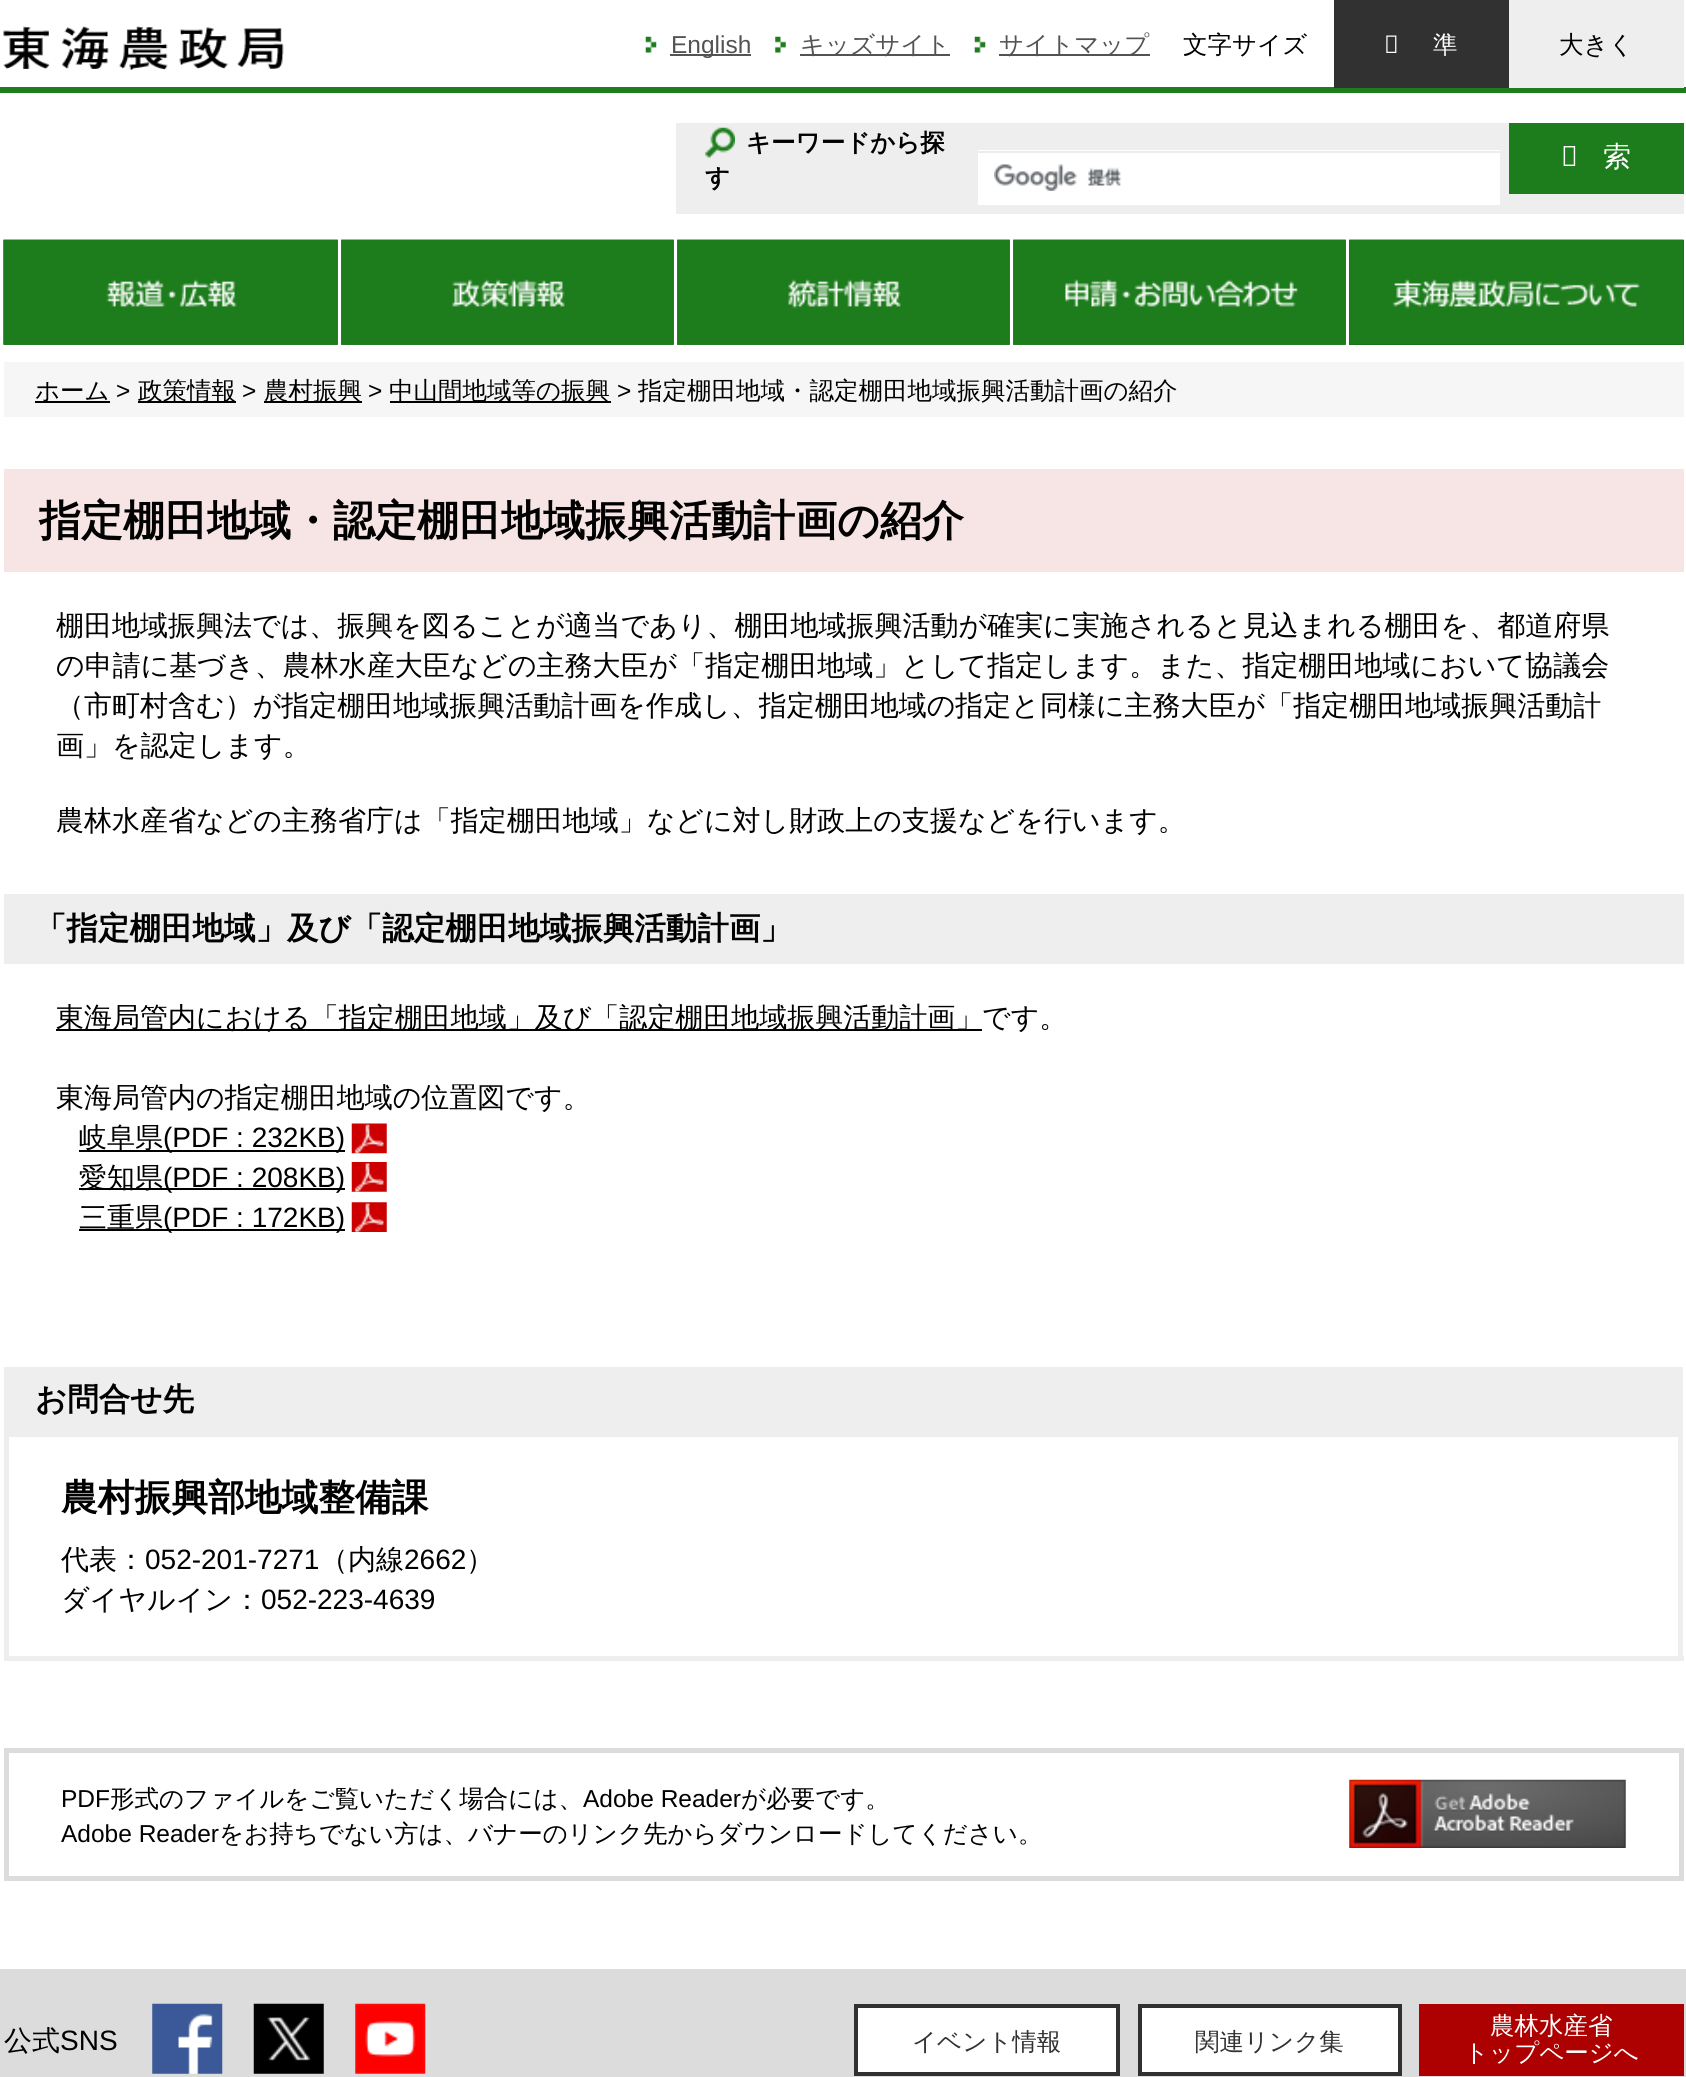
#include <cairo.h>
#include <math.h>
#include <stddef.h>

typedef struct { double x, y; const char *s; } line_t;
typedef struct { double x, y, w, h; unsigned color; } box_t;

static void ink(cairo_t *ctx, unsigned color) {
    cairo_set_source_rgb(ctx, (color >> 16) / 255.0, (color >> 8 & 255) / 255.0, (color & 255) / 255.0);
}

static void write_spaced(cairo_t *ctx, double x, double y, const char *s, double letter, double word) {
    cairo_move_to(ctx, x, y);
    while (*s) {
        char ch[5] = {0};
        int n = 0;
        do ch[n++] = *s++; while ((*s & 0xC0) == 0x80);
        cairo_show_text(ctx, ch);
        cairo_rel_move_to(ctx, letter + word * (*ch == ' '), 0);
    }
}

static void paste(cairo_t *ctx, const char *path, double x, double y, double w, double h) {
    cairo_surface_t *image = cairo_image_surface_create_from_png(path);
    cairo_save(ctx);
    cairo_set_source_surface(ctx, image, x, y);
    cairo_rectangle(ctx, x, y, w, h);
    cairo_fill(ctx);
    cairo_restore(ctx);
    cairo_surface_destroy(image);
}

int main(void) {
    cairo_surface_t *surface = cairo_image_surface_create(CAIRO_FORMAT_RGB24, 1686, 2077);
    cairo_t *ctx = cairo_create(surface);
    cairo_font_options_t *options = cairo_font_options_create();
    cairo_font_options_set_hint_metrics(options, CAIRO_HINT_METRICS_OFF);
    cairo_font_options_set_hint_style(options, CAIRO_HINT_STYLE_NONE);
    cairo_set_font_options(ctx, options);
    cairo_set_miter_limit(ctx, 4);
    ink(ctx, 0xFFFFFF);
    cairo_paint(ctx);
    ink(ctx, 0x1D7D1C);
    cairo_rectangle(ctx, 0, 87, 1686, 6);
    cairo_fill(ctx);
    paste(ctx, "media/1.png", 3, 26, 281, 44);
    paste(ctx, "media/2.png", 645, 36, 12, 17);
    ink(ctx, 0x535353);
    cairo_rectangle(ctx, 670, 54, 81, 2);
    cairo_fill(ctx);
    cairo_select_font_face(ctx, "Liberation Sans", CAIRO_FONT_SLANT_NORMAL, CAIRO_FONT_WEIGHT_NORMAL);
    cairo_set_font_size(ctx, 24.5);
    cairo_move_to(ctx, 671, 53);
    cairo_show_text(ctx, "English");
    paste(ctx, "media/3.png", 775, 36, 11, 17);
    cairo_rectangle(ctx, 800, 54, 150, 2);
    cairo_fill(ctx);
    cairo_select_font_face(ctx, "WenQuanYi Zen Hei Medium", CAIRO_FONT_SLANT_NORMAL, CAIRO_FONT_WEIGHT_NORMAL);
    cairo_move_to(ctx, 800, 53);
    cairo_show_text(ctx, "キッズサイト");
    paste(ctx, "media/2.png", 974, 36, 12, 17);
    cairo_rectangle(ctx, 999, 54, 151, 2);
    cairo_fill(ctx);
    cairo_move_to(ctx, 999, 53);
    cairo_show_text(ctx, "サイトマップ");
    ink(ctx, 0x000000);
    cairo_move_to(ctx, 1183, 53);
    cairo_show_text(ctx, "文字サイズ");
    ink(ctx, 0x313131);
    cairo_rectangle(ctx, 1334, 0, 175, 88);
    cairo_fill(ctx);
    cairo_select_font_face(ctx, "Noto Sans", CAIRO_FONT_SLANT_NORMAL, CAIRO_FONT_WEIGHT_NORMAL);
    ink(ctx, 0xFFFFFF);
    write_spaced(ctx, 1384, 53, "標", 24, 0);
    cairo_select_font_face(ctx, "WenQuanYi Zen Hei Medium", CAIRO_FONT_SLANT_NORMAL, CAIRO_FONT_WEIGHT_NORMAL);
    cairo_move_to(ctx, 1433, 53);
    cairo_show_text(ctx, "準");
    ink(ctx, 0xEEEEEE);
    cairo_rectangle(ctx, 1509, 0, 175, 88);
    cairo_fill(ctx);
    ink(ctx, 0x000000);
    cairo_move_to(ctx, 1559, 53);
    cairo_show_text(ctx, "大きく");
    ink(ctx, 0xEEEEEE);
    cairo_rectangle(ctx, 676, 123, 1008, 91);
    cairo_fill(ctx);
    paste(ctx, "media/4.png", 705, 127, 30, 31);
    cairo_select_font_face(ctx, "WenQuanYi Zen Hei", CAIRO_FONT_SLANT_NORMAL, CAIRO_FONT_WEIGHT_BOLD);
    ink(ctx, 0x000000);
    cairo_move_to(ctx, 746, 151);
    cairo_show_text(ctx, "キーワードから探");
    cairo_move_to(ctx, 705, 186);
    cairo_show_text(ctx, "す");
    ink(ctx, 0xFFFFFF);
    cairo_rectangle(ctx, 978, 150, 522, 55);
    cairo_fill(ctx);
    paste(ctx, "media/5.png", 994, 164, 128, 27);
    ink(ctx, 0xECECEC);
    cairo_rectangle(ctx, 978, 151, 522, 2);
    cairo_fill(ctx);
    ink(ctx, 0x1D7D1C);
    cairo_rectangle(ctx, 1509, 123, 175, 71);
    cairo_fill(ctx);
    cairo_select_font_face(ctx, "Noto Sans", CAIRO_FONT_SLANT_NORMAL, CAIRO_FONT_WEIGHT_NORMAL);
    cairo_set_font_size(ctx, 28);
    ink(ctx, 0xFFFFFF);
    write_spaced(ctx, 1561, 166, "検", 14, 0);
    cairo_select_font_face(ctx, "WenQuanYi Zen Hei Medium", CAIRO_FONT_SLANT_NORMAL, CAIRO_FONT_WEIGHT_NORMAL);
    cairo_move_to(ctx, 1603, 166);
    cairo_show_text(ctx, "索");
    paste(ctx, "media/6.png", 3, 239, 335, 106);
    paste(ctx, "media/7.png", 3, 239, 335, 106);
    paste(ctx, "media/8.png", 341, 239, 333, 106);
    paste(ctx, "media/9.png", 341, 239, 333, 106);
    paste(ctx, "media/10.png", 677, 239, 333, 106);
    paste(ctx, "media/11.png", 677, 239, 333, 106);
    paste(ctx, "media/12.png", 1013, 239, 333, 106);
    paste(ctx, "media/13.png", 1013, 239, 333, 106);
    ink(ctx, 0x1D7D1C);
    cairo_rectangle(ctx, 1349, 240, 335, 105);
    cairo_fill(ctx);
    paste(ctx, "media/14.png", 1349, 239, 335, 106);
    paste(ctx, "media/15.png", 1349, 239, 335, 106);
    ink(ctx, 0xF6F6F6);
    cairo_rectangle(ctx, 4, 362, 1680, 55);
    cairo_fill(ctx);
    ink(ctx, 0x000000);
    cairo_rectangle(ctx, 35, 401, 75, 2);
    cairo_fill(ctx);
    cairo_set_font_size(ctx, 24.5);
    cairo_move_to(ctx, 35, 399);
    cairo_show_text(ctx, "ホーム");
    cairo_select_font_face(ctx, "Liberation Sans", CAIRO_FONT_SLANT_NORMAL, CAIRO_FONT_WEIGHT_NORMAL);
    cairo_move_to(ctx, 116, 399);
    cairo_show_text(ctx, ">");
    cairo_rectangle(ctx, 138, 401, 98, 2);
    cairo_fill(ctx);
    cairo_select_font_face(ctx, "WenQuanYi Zen Hei Medium", CAIRO_FONT_SLANT_NORMAL, CAIRO_FONT_WEIGHT_NORMAL);
    cairo_move_to(ctx, 138, 399);
    cairo_show_text(ctx, "政策情報");
    cairo_select_font_face(ctx, "Liberation Sans", CAIRO_FONT_SLANT_NORMAL, CAIRO_FONT_WEIGHT_NORMAL);
    cairo_move_to(ctx, 242, 399);
    cairo_show_text(ctx, ">");
    cairo_rectangle(ctx, 264, 401, 98, 2);
    cairo_fill(ctx);
    cairo_select_font_face(ctx, "WenQuanYi Zen Hei Medium", CAIRO_FONT_SLANT_NORMAL, CAIRO_FONT_WEIGHT_NORMAL);
    cairo_move_to(ctx, 264, 399);
    cairo_show_text(ctx, "農村振興");
    cairo_select_font_face(ctx, "Liberation Sans", CAIRO_FONT_SLANT_NORMAL, CAIRO_FONT_WEIGHT_NORMAL);
    cairo_move_to(ctx, 368, 399);
    cairo_show_text(ctx, ">");
    cairo_rectangle(ctx, 390, 401, 221, 2);
    cairo_fill(ctx);
    cairo_select_font_face(ctx, "WenQuanYi Zen Hei Medium", CAIRO_FONT_SLANT_NORMAL, CAIRO_FONT_WEIGHT_NORMAL);
    cairo_move_to(ctx, 389, 399);
    cairo_show_text(ctx, "中山間地域等の振興");
    cairo_select_font_face(ctx, "Liberation Sans", CAIRO_FONT_SLANT_NORMAL, CAIRO_FONT_WEIGHT_NORMAL);
    cairo_move_to(ctx, 617, 399);
    cairo_show_text(ctx, ">");
    cairo_select_font_face(ctx, "WenQuanYi Zen Hei Medium", CAIRO_FONT_SLANT_NORMAL, CAIRO_FONT_WEIGHT_NORMAL);
    cairo_move_to(ctx, 638, 399);
    cairo_show_text(ctx, "指定棚田地域・認定棚田地域振興活動計画の紹介");
    ink(ctx, 0xF7E5E5);
    cairo_rectangle(ctx, 4, 469, 1680, 103);
    cairo_fill(ctx);
    cairo_select_font_face(ctx, "WenQuanYi Zen Hei", CAIRO_FONT_SLANT_NORMAL, CAIRO_FONT_WEIGHT_BOLD);
    cairo_set_font_size(ctx, 42);
    ink(ctx, 0x000000);
    cairo_move_to(ctx, 39, 535);
    cairo_show_text(ctx, "指定棚田地域・認定棚田地域振興活動計画の紹介");
    cairo_select_font_face(ctx, "WenQuanYi Zen Hei Medium", CAIRO_FONT_SLANT_NORMAL, CAIRO_FONT_WEIGHT_NORMAL);
    cairo_set_font_size(ctx, 28);
    {
        static const line_t items[] = {
            {56, 635, "棚田地域振興法では、振興を図ることが適当であり、棚田地域振興活動が確実に実施されると見込まれる棚田を、都道府県"},
            {56, 675, "の申請に基づき、農林水産大臣などの主務大臣が「指定棚田地域」として指定します。また、指定棚田地域において協議会"},
            {56, 715, "（市町村含む）が指定棚田地域振興活動計画を作成し、指定棚田地域の指定と同様に主務大臣が「指定棚田地域振興活動計"},
            {56, 755, "画」を認定します。"},
            {56, 830, "農林水産省などの主務省庁は「指定棚田地域」などに対し財政上の支援などを行います。"},
        };
        for (size_t i = 0; i < sizeof items / sizeof *items; i++) {
            cairo_move_to(ctx, items[i].x, items[i].y);
            cairo_show_text(ctx, items[i].s);
        }
    }
    ink(ctx, 0xEEEEEE);
    cairo_rectangle(ctx, 4, 894, 1680, 70);
    cairo_fill(ctx);
    cairo_select_font_face(ctx, "WenQuanYi Zen Hei", CAIRO_FONT_SLANT_NORMAL, CAIRO_FONT_WEIGHT_BOLD);
    cairo_set_font_size(ctx, 31.5);
    ink(ctx, 0x000000);
    cairo_move_to(ctx, 35, 939);
    cairo_show_text(ctx, "「指定棚田地域」及び「認定棚田地域振興活動計画」");
    cairo_rectangle(ctx, 56, 1029, 926, 2);
    cairo_fill(ctx);
    cairo_select_font_face(ctx, "WenQuanYi Zen Hei Medium", CAIRO_FONT_SLANT_NORMAL, CAIRO_FONT_WEIGHT_NORMAL);
    cairo_set_font_size(ctx, 28);
    {
        static const line_t items[] = {
            {56, 1027, "東海局管内における「指定棚田地域」及び「認定棚田地域振興活動計画」"},
            {982, 1027, "です。"},
            {56, 1107, "東海局管内の指定棚田地域の位置図です。"},
        };
        for (size_t i = 0; i < sizeof items / sizeof *items; i++) {
            cairo_move_to(ctx, items[i].x, items[i].y);
            cairo_show_text(ctx, items[i].s);
        }
    }
    cairo_rectangle(ctx, 79, 1150, 266, 2);
    cairo_fill(ctx);
    cairo_move_to(ctx, 79, 1147);
    cairo_show_text(ctx, "岐阜県");
    cairo_select_font_face(ctx, "Liberation Sans", CAIRO_FONT_SLANT_NORMAL, CAIRO_FONT_WEIGHT_NORMAL);
    cairo_move_to(ctx, 163, 1147);
    cairo_show_text(ctx, "(PDF : 232KB)");
    paste(ctx, "media/16.png", 351, 1123, 36, 31);
    cairo_rectangle(ctx, 79, 1188, 266, 2);
    cairo_fill(ctx);
    cairo_select_font_face(ctx, "WenQuanYi Zen Hei Medium", CAIRO_FONT_SLANT_NORMAL, CAIRO_FONT_WEIGHT_NORMAL);
    cairo_move_to(ctx, 79, 1187);
    cairo_show_text(ctx, "愛知県");
    cairo_select_font_face(ctx, "Liberation Sans", CAIRO_FONT_SLANT_NORMAL, CAIRO_FONT_WEIGHT_NORMAL);
    cairo_move_to(ctx, 163, 1187);
    cairo_show_text(ctx, "(PDF : 208KB)");
    paste(ctx, "media/17.png", 351, 1162, 36, 30);
    cairo_rectangle(ctx, 79, 1229, 266, 2);
    cairo_fill(ctx);
    cairo_select_font_face(ctx, "WenQuanYi Zen Hei Medium", CAIRO_FONT_SLANT_NORMAL, CAIRO_FONT_WEIGHT_NORMAL);
    cairo_move_to(ctx, 79, 1227);
    cairo_show_text(ctx, "三重県");
    cairo_select_font_face(ctx, "Liberation Sans", CAIRO_FONT_SLANT_NORMAL, CAIRO_FONT_WEIGHT_NORMAL);
    cairo_move_to(ctx, 163, 1227);
    cairo_show_text(ctx, "(PDF : 172KB)");
    paste(ctx, "media/18.png", 351, 1202, 36, 30);
    {
        static const box_t items[] = {
            {1678, 1367, 5, 294, 0xEEEEEE},
            {4, 1656, 1680, 5, 0xEEEEEE},
            {4, 1367, 5, 294, 0xEEEEEE},
            {9, 1367, 1669, 70, 0xEEEEEE},
        };
        for (size_t i = 0; i < sizeof items / sizeof *items; i++) {
            ink(ctx, items[i].color);
            cairo_rectangle(ctx, items[i].x, items[i].y, items[i].w, items[i].h);
            cairo_fill(ctx);
        }
    }
    cairo_select_font_face(ctx, "WenQuanYi Zen Hei", CAIRO_FONT_SLANT_NORMAL, CAIRO_FONT_WEIGHT_BOLD);
    cairo_set_font_size(ctx, 31.5);
    ink(ctx, 0x000000);
    cairo_move_to(ctx, 35, 1410);
    cairo_show_text(ctx, "お問合せ先");
    cairo_set_font_size(ctx, 36.75);
    cairo_move_to(ctx, 61, 1510);
    cairo_show_text(ctx, "農村振興部地域整備課");
    cairo_select_font_face(ctx, "WenQuanYi Zen Hei Medium", CAIRO_FONT_SLANT_NORMAL, CAIRO_FONT_WEIGHT_NORMAL);
    cairo_set_font_size(ctx, 28);
    cairo_move_to(ctx, 61, 1569);
    cairo_show_text(ctx, "代表：");
    cairo_select_font_face(ctx, "Liberation Sans", CAIRO_FONT_SLANT_NORMAL, CAIRO_FONT_WEIGHT_NORMAL);
    cairo_move_to(ctx, 145, 1569);
    cairo_show_text(ctx, "052-201-7271");
    cairo_select_font_face(ctx, "WenQuanYi Zen Hei Medium", CAIRO_FONT_SLANT_NORMAL, CAIRO_FONT_WEIGHT_NORMAL);
    cairo_move_to(ctx, 320, 1569);
    cairo_show_text(ctx, "（内線");
    cairo_select_font_face(ctx, "Liberation Sans", CAIRO_FONT_SLANT_NORMAL, CAIRO_FONT_WEIGHT_NORMAL);
    cairo_move_to(ctx, 404, 1569);
    cairo_show_text(ctx, "2662");
    cairo_select_font_face(ctx, "WenQuanYi Zen Hei Medium", CAIRO_FONT_SLANT_NORMAL, CAIRO_FONT_WEIGHT_NORMAL);
    cairo_move_to(ctx, 466, 1569);
    cairo_show_text(ctx, "）");
    cairo_move_to(ctx, 61, 1609);
    cairo_show_text(ctx, "ダイヤルイン：");
    cairo_select_font_face(ctx, "Liberation Sans", CAIRO_FONT_SLANT_NORMAL, CAIRO_FONT_WEIGHT_NORMAL);
    cairo_move_to(ctx, 261, 1609);
    cairo_show_text(ctx, "052-223-4639");
    cairo_rectangle(ctx, 6.5, 1750.5, 1675, 128);
    ink(ctx, 0xDCDCDC);
    cairo_set_line_width(ctx, 5);
    cairo_stroke(ctx);
    cairo_set_font_size(ctx, 24.5);
    ink(ctx, 0x000000);
    cairo_move_to(ctx, 61, 1807);
    cairo_show_text(ctx, "PDF");
    cairo_select_font_face(ctx, "WenQuanYi Zen Hei Medium", CAIRO_FONT_SLANT_NORMAL, CAIRO_FONT_WEIGHT_NORMAL);
    cairo_move_to(ctx, 110, 1807);
    cairo_show_text(ctx, "形式のファイルをご覧いただく場合には、");
    cairo_select_font_face(ctx, "Liberation Sans", CAIRO_FONT_SLANT_NORMAL, CAIRO_FONT_WEIGHT_NORMAL);
    cairo_move_to(ctx, 583, 1807);
    cairo_show_text(ctx, "Adobe Reader");
    cairo_select_font_face(ctx, "WenQuanYi Zen Hei Medium", CAIRO_FONT_SLANT_NORMAL, CAIRO_FONT_WEIGHT_NORMAL);
    cairo_move_to(ctx, 741, 1807);
    cairo_show_text(ctx, "が必要です。");
    cairo_select_font_face(ctx, "Liberation Sans", CAIRO_FONT_SLANT_NORMAL, CAIRO_FONT_WEIGHT_NORMAL);
    cairo_move_to(ctx, 61, 1842);
    cairo_show_text(ctx, "Adobe Reader");
    cairo_select_font_face(ctx, "WenQuanYi Zen Hei Medium", CAIRO_FONT_SLANT_NORMAL, CAIRO_FONT_WEIGHT_NORMAL);
    cairo_move_to(ctx, 219, 1842);
    cairo_show_text(ctx, "をお持ちでない方は、バナーのリンク先からダウンロードしてください。");
    paste(ctx, "media/19.png", 1349, 1779, 277, 69);
    ink(ctx, 0xDCDCDC);
    cairo_rectangle(ctx, 0, 1969, 1686, 108);
    cairo_fill(ctx);
    cairo_set_font_size(ctx, 28);
    ink(ctx, 0x000000);
    cairo_move_to(ctx, 4, 2050);
    cairo_show_text(ctx, "公式");
    cairo_select_font_face(ctx, "Liberation Sans", CAIRO_FONT_SLANT_NORMAL, CAIRO_FONT_WEIGHT_NORMAL);
    cairo_move_to(ctx, 60, 2050);
    cairo_show_text(ctx, "SNS");
    paste(ctx, "media/20.png", 152, 2003, 71, 71);
    paste(ctx, "media/21.png", 253, 2003, 71, 71);
    paste(ctx, "media/22.png", 355, 2003, 71, 71);
    ink(ctx, 0xFFFFFF);
    cairo_rectangle(ctx, 856, 2006, 262, 68);
    cairo_fill_preserve(ctx);
    ink(ctx, 0x313131);
    cairo_set_line_width(ctx, 4);
    cairo_stroke(ctx);
    cairo_select_font_face(ctx, "WenQuanYi Zen Hei Medium", CAIRO_FONT_SLANT_NORMAL, CAIRO_FONT_WEIGHT_NORMAL);
    cairo_set_font_size(ctx, 24.5);
    cairo_move_to(ctx, 912, 2050);
    cairo_show_text(ctx, "イベント情報");
    ink(ctx, 0xFFFFFF);
    cairo_rectangle(ctx, 1140, 2006, 260, 68);
    cairo_fill_preserve(ctx);
    ink(ctx, 0x313131);
    cairo_stroke(ctx);
    cairo_move_to(ctx, 1195, 2050);
    cairo_show_text(ctx, "関連リンク集");
    ink(ctx, 0xAD0000);
    cairo_rectangle(ctx, 1419, 2004, 265, 72);
    cairo_fill(ctx);
    ink(ctx, 0xFFFFFF);
    cairo_move_to(ctx, 1490, 2034);
    cairo_show_text(ctx, "農林水産省");
    cairo_move_to(ctx, 1464, 2061);
    cairo_show_text(ctx, "トップページへ");
    cairo_surface_write_to_png(surface, "image.png");
    cairo_font_options_destroy(options);
    cairo_destroy(ctx);
    cairo_surface_destroy(surface);
    return 0;
}
